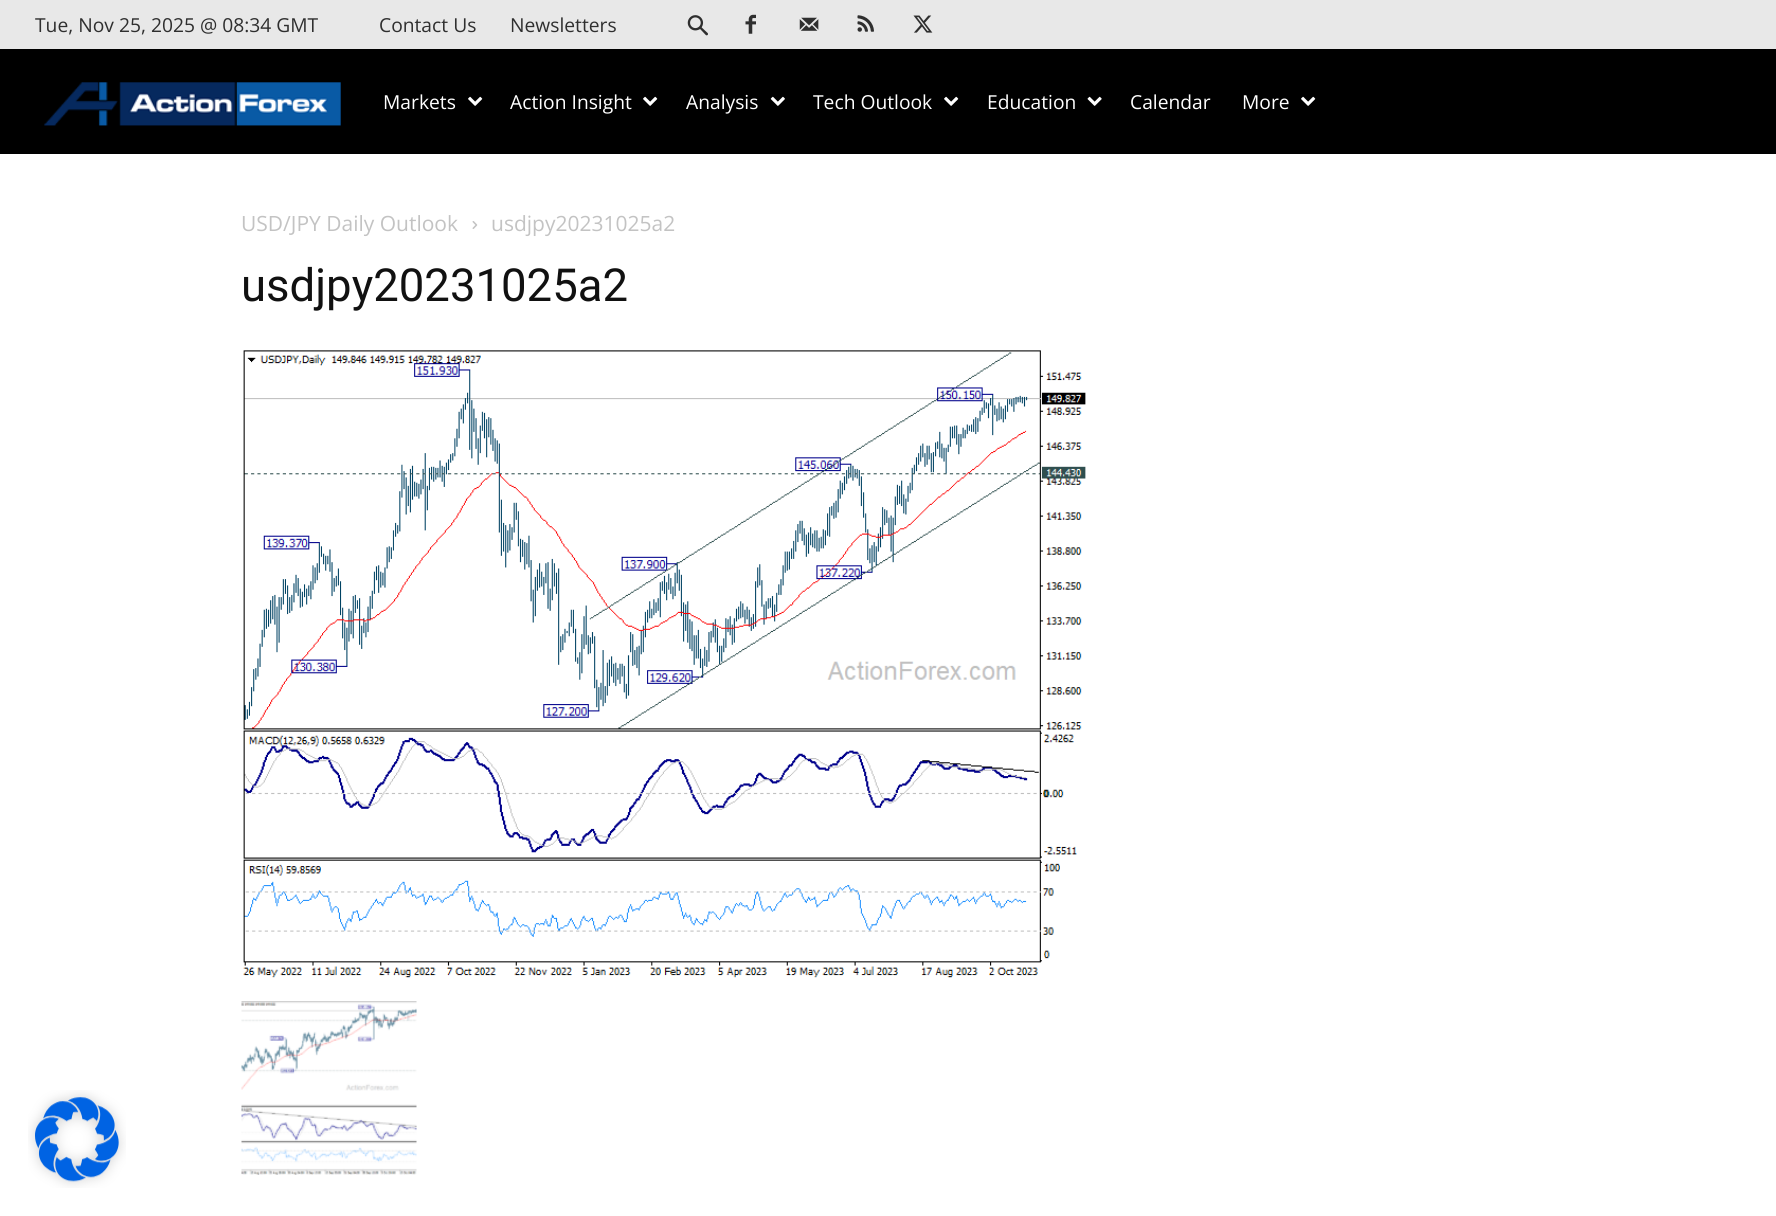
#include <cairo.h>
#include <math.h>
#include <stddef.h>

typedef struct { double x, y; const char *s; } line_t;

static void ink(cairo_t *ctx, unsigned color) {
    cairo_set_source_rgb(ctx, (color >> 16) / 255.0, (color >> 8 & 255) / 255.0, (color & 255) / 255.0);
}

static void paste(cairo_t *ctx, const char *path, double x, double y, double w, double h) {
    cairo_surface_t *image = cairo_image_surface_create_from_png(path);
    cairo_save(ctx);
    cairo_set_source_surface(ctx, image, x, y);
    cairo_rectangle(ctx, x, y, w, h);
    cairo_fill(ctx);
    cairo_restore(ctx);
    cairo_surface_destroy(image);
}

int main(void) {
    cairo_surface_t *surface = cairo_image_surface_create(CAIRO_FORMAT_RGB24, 1776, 1216);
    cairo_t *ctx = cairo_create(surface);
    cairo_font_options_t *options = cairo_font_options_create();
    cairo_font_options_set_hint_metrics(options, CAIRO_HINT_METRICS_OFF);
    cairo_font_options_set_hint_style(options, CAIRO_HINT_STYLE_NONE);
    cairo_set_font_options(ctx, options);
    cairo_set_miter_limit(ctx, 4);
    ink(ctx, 0xFFFFFF);
    cairo_paint(ctx);
    ink(ctx, 0xE8E8E8);
    cairo_rectangle(ctx, 0, 0, 1776, 49);
    cairo_fill(ctx);
    cairo_select_font_face(ctx, "Open Sans", CAIRO_FONT_SLANT_NORMAL, CAIRO_FONT_WEIGHT_NORMAL);
    cairo_set_font_size(ctx, 19.25);
    ink(ctx, 0x2F2F2F);
    {
        static const line_t items[] = {
            {35, 32, "Tue, Nov 25, 2025 @ 08:34 GMT"},
            {379, 32, "Contact Us"},
            {510, 32, "Newsletters"},
        };
        for (size_t i = 0; i < sizeof items / sizeof *items; i++) {
            cairo_move_to(ctx, items[i].x, items[i].y);
            cairo_show_text(ctx, items[i].s);
        }
    }
    paste(ctx, "media/1.png", 687, 15, 21, 21);
    paste(ctx, "media/2.png", 745, 14, 11, 20);
    paste(ctx, "media/3.png", 799, 17, 20, 14);
    paste(ctx, "media/4.png", 857, 15, 17, 17);
    paste(ctx, "media/5.png", 913, 15, 20, 18);
    ink(ctx, 0x000000);
    cairo_rectangle(ctx, 0, 49, 1776, 105);
    cairo_fill(ctx);
    paste(ctx, "media/6.png", 44, 82, 297, 44);
    ink(ctx, 0xFFFFFF);
    cairo_move_to(ctx, 383, 109);
    cairo_show_text(ctx, "Markets");
    paste(ctx, "media/7.png", 468, 96, 15, 10);
    cairo_move_to(ctx, 510, 109);
    cairo_show_text(ctx, "Action Insight");
    paste(ctx, "media/7.png", 643, 96, 15, 10);
    cairo_move_to(ctx, 686, 109);
    cairo_show_text(ctx, "Analysis");
    paste(ctx, "media/8.png", 770, 96, 15, 10);
    cairo_move_to(ctx, 813, 109);
    cairo_show_text(ctx, "Tech Outlook");
    paste(ctx, "media/7.png", 944, 96, 15, 10);
    cairo_move_to(ctx, 987, 109);
    cairo_show_text(ctx, "Education");
    paste(ctx, "media/9.png", 1087, 96, 15, 10);
    cairo_move_to(ctx, 1130, 109);
    cairo_show_text(ctx, "Calendar");
    cairo_move_to(ctx, 1242, 109);
    cairo_show_text(ctx, "More");
    paste(ctx, "media/7.png", 1301, 96, 15, 10);
    cairo_set_font_size(ctx, 21);
    ink(ctx, 0xC3C3C3);
    cairo_move_to(ctx, 241, 231);
    cairo_show_text(ctx, "USD/JPY Daily Outlook");
    paste(ctx, "media/10.png", 472, 221, 6, 8);
    cairo_move_to(ctx, 491, 231);
    cairo_show_text(ctx, "usdjpy20231025a2");
    cairo_select_font_face(ctx, "Roboto", CAIRO_FONT_SLANT_NORMAL, CAIRO_FONT_WEIGHT_NORMAL);
    cairo_set_font_size(ctx, 45.5);
    ink(ctx, 0x111111);
    cairo_move_to(ctx, 241, 301);
    cairo_show_text(ctx, "usdjpy20231025a2");
    paste(ctx, "media/11.png", 243, 350, 843, 628);
    paste(ctx, "media/12.png", 241, 1001, 176, 174);
    paste(ctx, "media/13.png", 28, 1090, 98, 98);
    cairo_surface_write_to_png(surface, "image.png");
    cairo_font_options_destroy(options);
    cairo_destroy(ctx);
    cairo_surface_destroy(surface);
    return 0;
}
